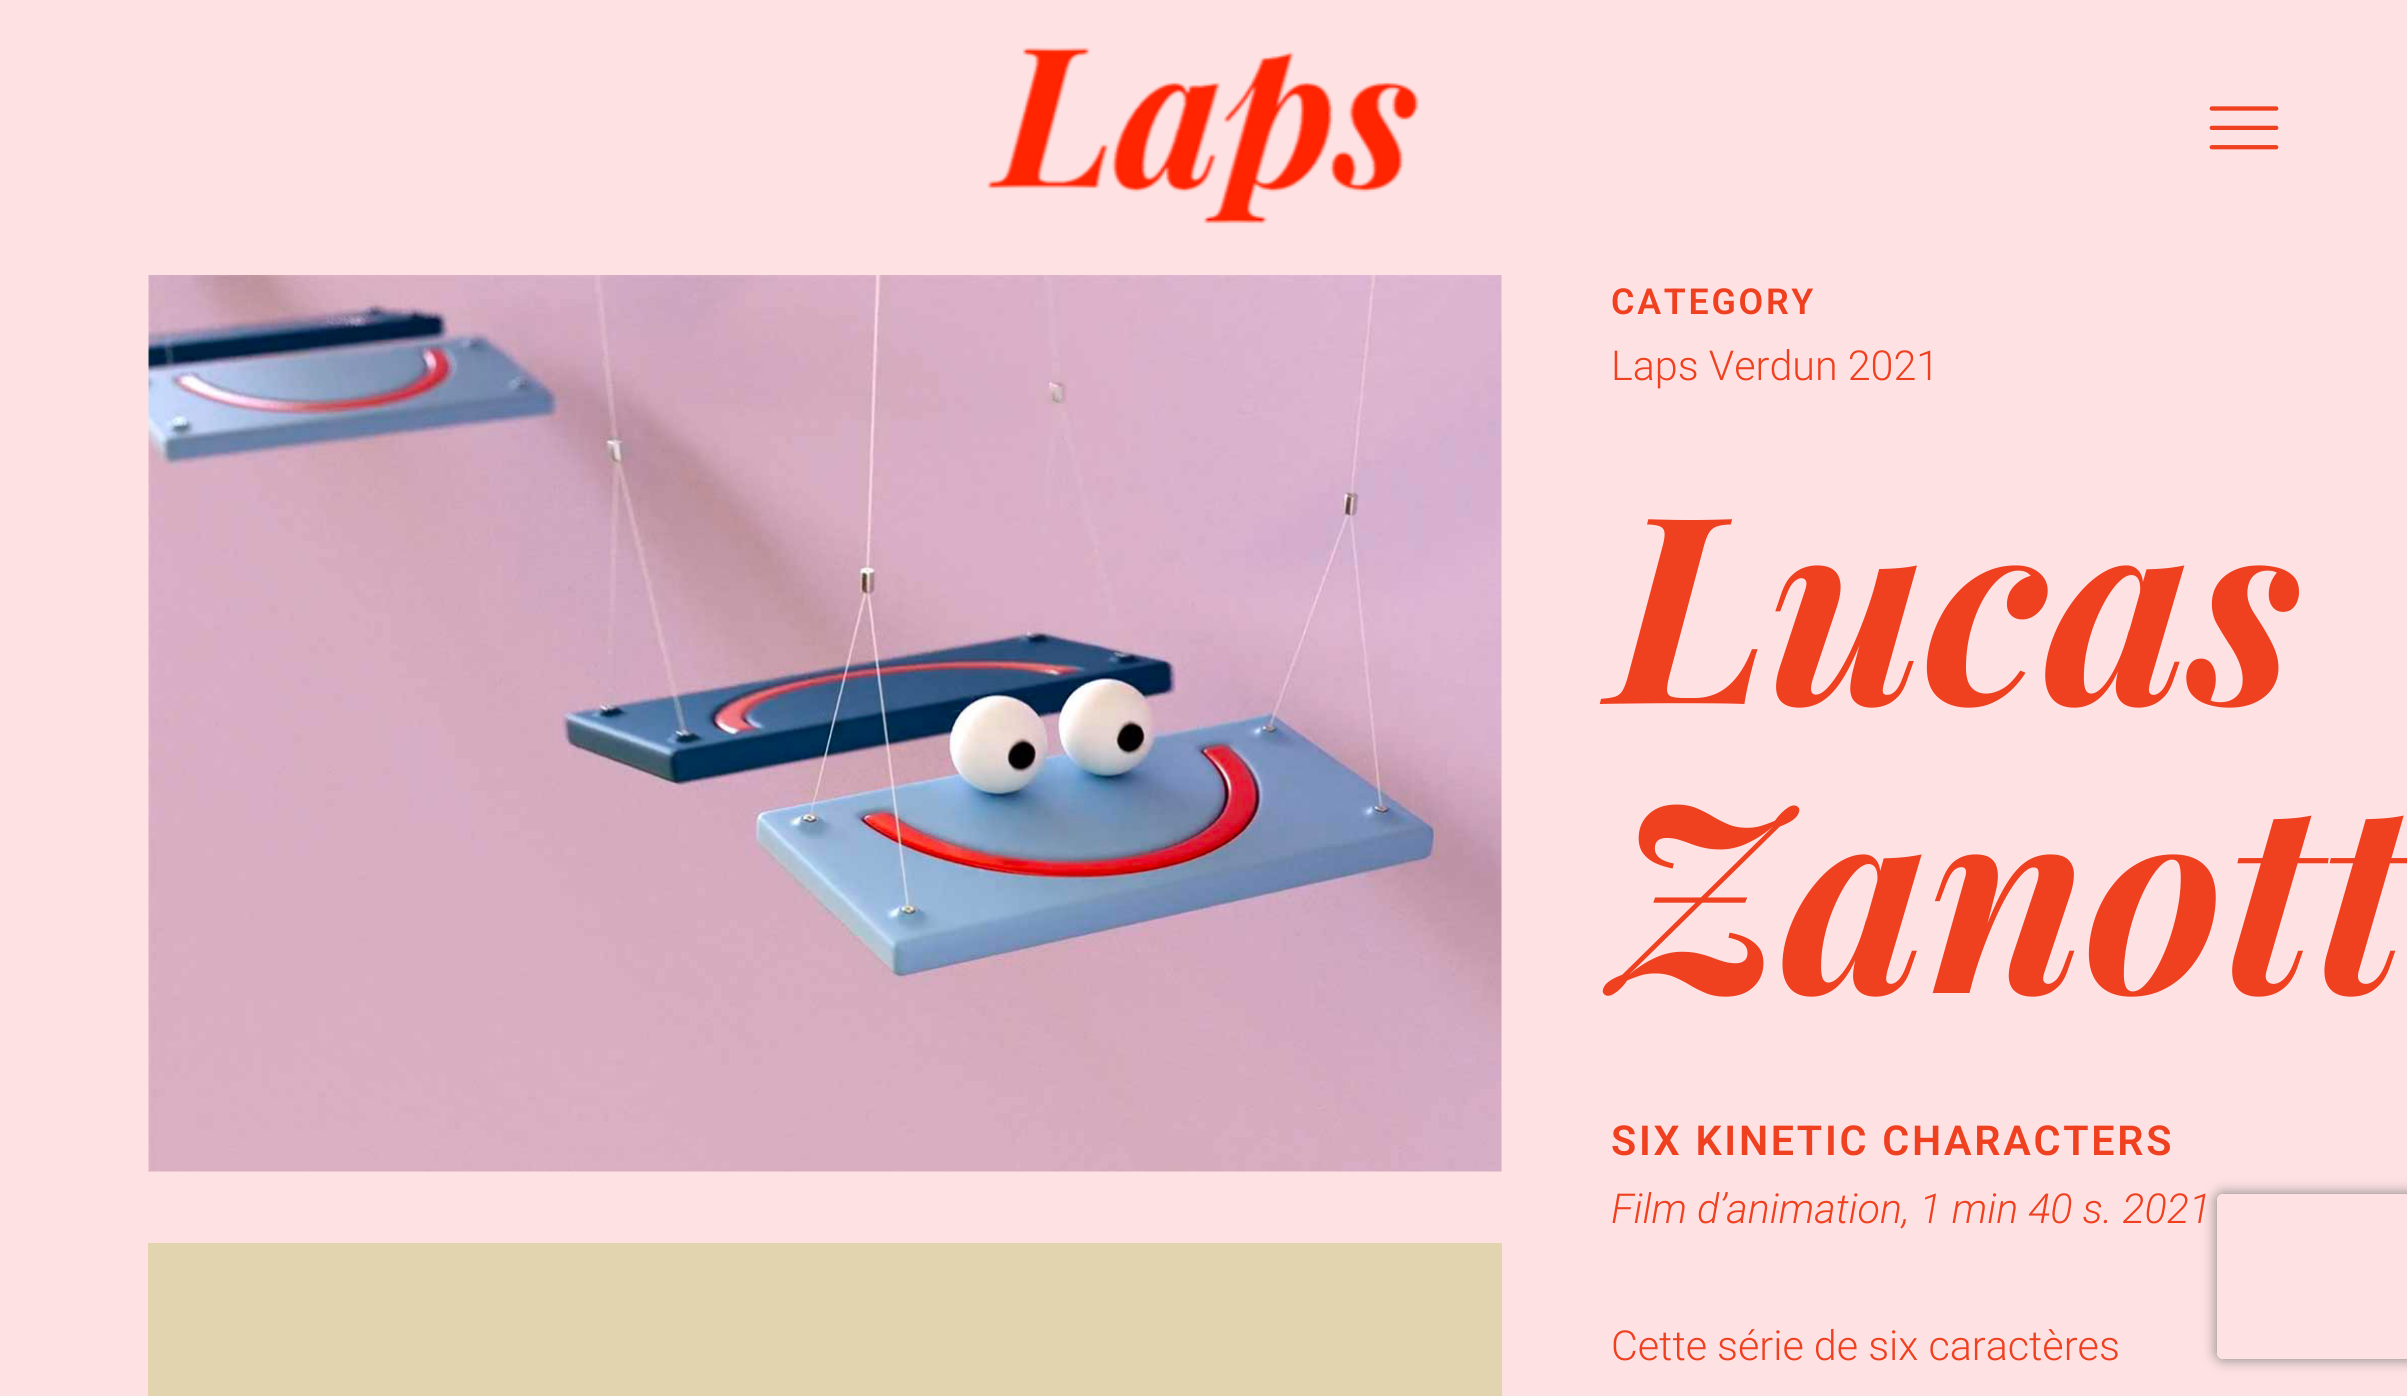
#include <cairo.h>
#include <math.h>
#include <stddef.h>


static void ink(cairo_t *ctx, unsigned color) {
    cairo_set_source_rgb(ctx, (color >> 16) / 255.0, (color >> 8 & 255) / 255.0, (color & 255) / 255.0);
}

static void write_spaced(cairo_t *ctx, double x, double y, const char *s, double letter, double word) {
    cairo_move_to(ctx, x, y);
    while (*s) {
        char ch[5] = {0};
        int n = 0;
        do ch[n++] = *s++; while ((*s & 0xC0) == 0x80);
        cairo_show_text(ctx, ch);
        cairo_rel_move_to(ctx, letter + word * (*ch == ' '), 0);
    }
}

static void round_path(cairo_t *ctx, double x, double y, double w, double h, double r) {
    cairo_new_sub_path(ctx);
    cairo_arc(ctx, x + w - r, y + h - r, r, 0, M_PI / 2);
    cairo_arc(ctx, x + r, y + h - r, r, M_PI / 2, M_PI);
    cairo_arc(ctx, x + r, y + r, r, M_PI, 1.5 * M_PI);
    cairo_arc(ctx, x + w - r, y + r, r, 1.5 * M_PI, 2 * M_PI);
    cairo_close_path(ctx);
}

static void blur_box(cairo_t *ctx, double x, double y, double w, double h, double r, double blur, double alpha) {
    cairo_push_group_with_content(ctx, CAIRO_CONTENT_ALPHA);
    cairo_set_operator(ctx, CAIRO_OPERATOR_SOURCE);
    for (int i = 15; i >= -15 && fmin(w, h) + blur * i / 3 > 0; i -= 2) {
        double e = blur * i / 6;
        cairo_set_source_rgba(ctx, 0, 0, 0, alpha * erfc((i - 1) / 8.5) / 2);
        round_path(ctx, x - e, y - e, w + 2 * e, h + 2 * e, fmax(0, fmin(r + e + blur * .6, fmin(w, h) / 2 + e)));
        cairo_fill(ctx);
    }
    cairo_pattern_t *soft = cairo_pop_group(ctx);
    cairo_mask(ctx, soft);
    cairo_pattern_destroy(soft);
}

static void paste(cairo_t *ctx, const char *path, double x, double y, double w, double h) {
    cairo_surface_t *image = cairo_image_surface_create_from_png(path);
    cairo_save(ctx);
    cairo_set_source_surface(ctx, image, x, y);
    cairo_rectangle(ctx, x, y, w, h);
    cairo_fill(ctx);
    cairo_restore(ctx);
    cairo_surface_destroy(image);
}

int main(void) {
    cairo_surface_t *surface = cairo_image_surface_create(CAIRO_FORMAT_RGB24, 2407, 1396);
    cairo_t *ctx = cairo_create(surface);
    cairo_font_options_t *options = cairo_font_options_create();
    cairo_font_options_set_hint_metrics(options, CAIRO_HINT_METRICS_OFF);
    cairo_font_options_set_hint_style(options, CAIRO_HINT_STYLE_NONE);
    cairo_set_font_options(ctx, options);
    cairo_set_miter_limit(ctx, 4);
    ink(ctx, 0xFEE1E3);
    cairo_paint(ctx);
    paste(ctx, "media/1.png", 987, 47, 433, 178);
    paste(ctx, "media/2.png", 2209, 106, 70, 44);
    paste(ctx, "media/3.png", 148, 275, 1354, 897);
    ink(ctx, 0xE2D4AF);
    cairo_rectangle(ctx, 148, 1243, 1354, 153);
    cairo_fill(ctx);
    cairo_select_font_face(ctx, "Roboto SemiBold", CAIRO_FONT_SLANT_NORMAL, CAIRO_FONT_WEIGHT_NORMAL);
    cairo_set_font_size(ctx, 35.75);
    ink(ctx, 0xEF401F);
    write_spaced(ctx, 1611, 314, "CATEGORY", 2.75, 0);
    cairo_select_font_face(ctx, "Roboto Light", CAIRO_FONT_SLANT_NORMAL, CAIRO_FONT_WEIGHT_NORMAL);
    cairo_set_font_size(ctx, 41.25);
    cairo_move_to(ctx, 1611, 380);
    cairo_show_text(ctx, "Laps Verdun 2021");
    cairo_select_font_face(ctx, "Playfair Display", CAIRO_FONT_SLANT_ITALIC, CAIRO_FONT_WEIGHT_BOLD);
    cairo_set_font_size(ctx, 261);
    cairo_move_to(ctx, 1611, 704);
    cairo_show_text(ctx, "Lucas");
    cairo_move_to(ctx, 1611, 993);
    cairo_show_text(ctx, "Zanott");
    cairo_select_font_face(ctx, "Roboto SemiBold", CAIRO_FONT_SLANT_NORMAL, CAIRO_FONT_WEIGHT_NORMAL);
    cairo_set_font_size(ctx, 41.25);
    write_spaced(ctx, 1611, 1155, "SIX KINETIC CHARACTERS", 2.75, 0);
    cairo_save(ctx);
    cairo_set_fill_rule(ctx, CAIRO_FILL_RULE_EVEN_ODD);
    cairo_new_path(ctx);
    cairo_move_to(ctx, 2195, 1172);
    cairo_line_to(ctx, 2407, 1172);
    cairo_line_to(ctx, 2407, 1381);
    cairo_line_to(ctx, 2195, 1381);
    cairo_close_path(ctx);
    cairo_move_to(ctx, 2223, 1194);
    cairo_line_to(ctx, 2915, 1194);
    cairo_curve_to(ctx, 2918.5, 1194, 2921, 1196.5, 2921, 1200);
    cairo_line_to(ctx, 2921, 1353);
    cairo_curve_to(ctx, 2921, 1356.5, 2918.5, 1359, 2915, 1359);
    cairo_line_to(ctx, 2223, 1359);
    cairo_curve_to(ctx, 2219.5, 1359, 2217, 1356.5, 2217, 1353);
    cairo_line_to(ctx, 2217, 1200);
    cairo_curve_to(ctx, 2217, 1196.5, 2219.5, 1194, 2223, 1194);
    cairo_close_path(ctx);
    cairo_clip(ctx);
    ink(ctx, 0x808080);
    blur_box(ctx, 2217, 1194, 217, 165, 6, 7, 1);
    cairo_restore(ctx);
    cairo_select_font_face(ctx, "Roboto Light", CAIRO_FONT_SLANT_ITALIC, CAIRO_FONT_WEIGHT_NORMAL);
    cairo_move_to(ctx, 1611, 1223);
    cairo_show_text(ctx, "Film d’animation, 1 min 40 s. 2021");
    cairo_select_font_face(ctx, "Roboto Light", CAIRO_FONT_SLANT_NORMAL, CAIRO_FONT_WEIGHT_NORMAL);
    cairo_move_to(ctx, 1611, 1360);
    cairo_show_text(ctx, "Cette série de six caractères");
    cairo_surface_write_to_png(surface, "image.png");
    cairo_font_options_destroy(options);
    cairo_destroy(ctx);
    cairo_surface_destroy(surface);
    return 0;
}
